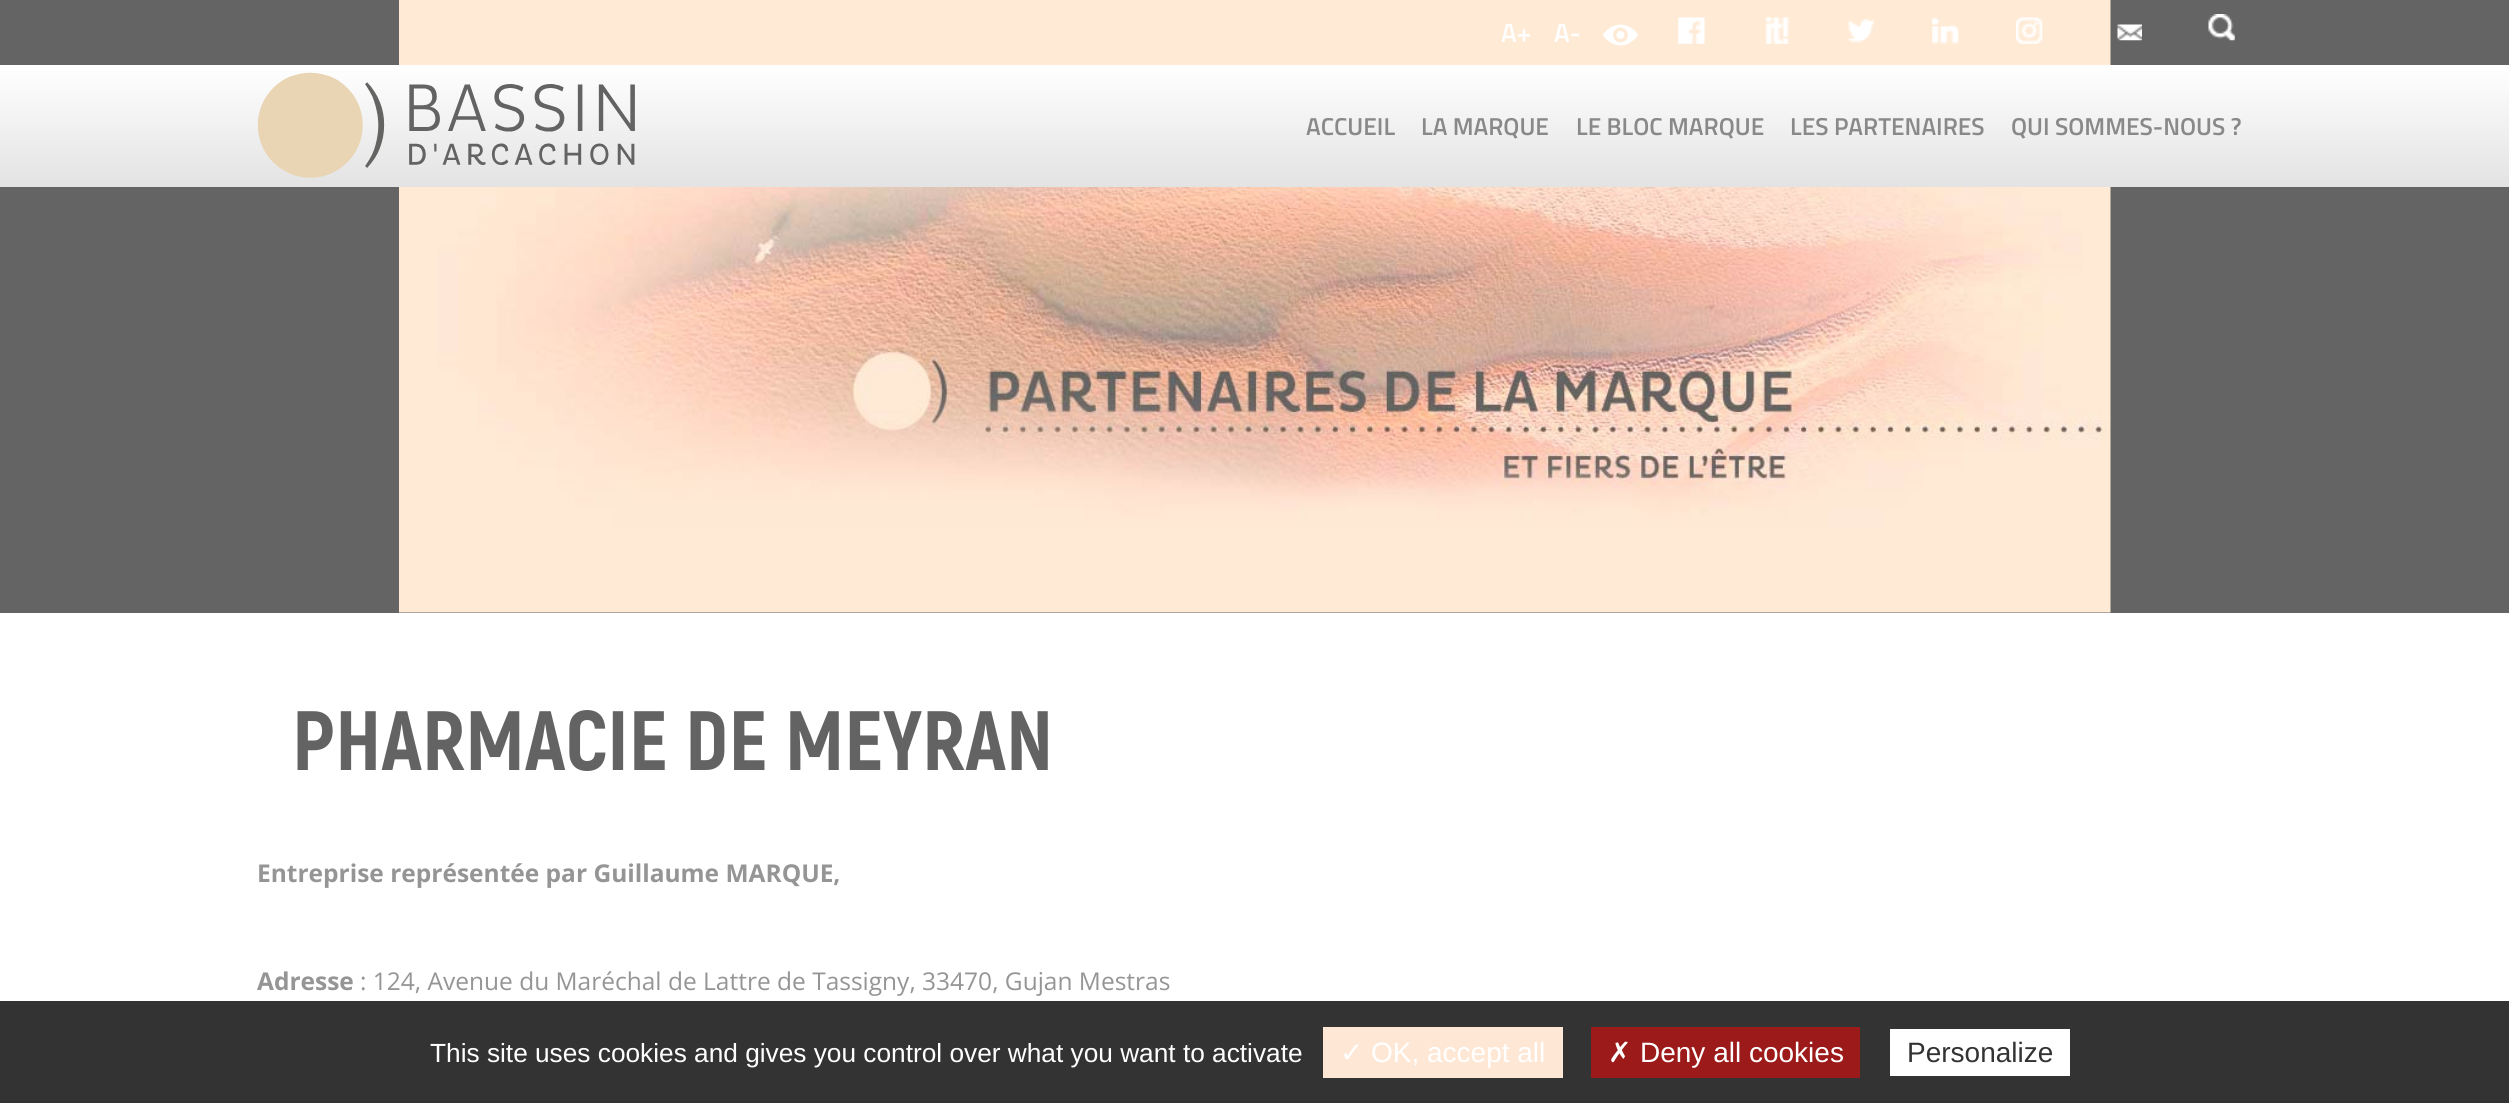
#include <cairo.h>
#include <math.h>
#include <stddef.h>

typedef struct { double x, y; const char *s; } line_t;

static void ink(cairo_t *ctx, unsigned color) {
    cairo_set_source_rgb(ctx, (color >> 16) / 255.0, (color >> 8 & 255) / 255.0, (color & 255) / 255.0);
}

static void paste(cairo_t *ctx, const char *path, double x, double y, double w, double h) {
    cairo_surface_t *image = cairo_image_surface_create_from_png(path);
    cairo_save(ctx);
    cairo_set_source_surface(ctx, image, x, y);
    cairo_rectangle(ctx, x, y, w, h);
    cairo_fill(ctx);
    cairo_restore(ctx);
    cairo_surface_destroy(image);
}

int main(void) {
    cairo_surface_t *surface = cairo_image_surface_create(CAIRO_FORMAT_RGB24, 2509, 1103);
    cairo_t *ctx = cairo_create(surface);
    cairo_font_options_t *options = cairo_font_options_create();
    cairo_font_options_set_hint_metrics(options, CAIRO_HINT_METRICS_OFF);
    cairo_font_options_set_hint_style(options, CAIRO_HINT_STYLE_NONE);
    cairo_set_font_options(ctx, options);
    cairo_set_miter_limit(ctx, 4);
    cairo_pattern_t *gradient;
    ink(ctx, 0xFFFFFF);
    cairo_paint(ctx);
    ink(ctx, 0x646464);
    cairo_rectangle(ctx, 0, 0, 2509, 613);
    cairo_fill(ctx);
    paste(ctx, "media/10.png", 399, 0, 1712, 613);
    gradient = cairo_pattern_create_linear(1255, 65, 1255, 187);
    cairo_pattern_add_color_stop_rgba(gradient, 0, 1, 1, 1, 1);
    cairo_pattern_add_color_stop_rgba(gradient, 1, 0.89, 0.89, 0.89, 1);
    cairo_set_source(ctx, gradient);
    cairo_pattern_destroy(gradient);
    cairo_rectangle(ctx, 0, 65, 2509, 122);
    cairo_fill(ctx);
    paste(ctx, "media/1.png", 257, 72, 378, 106);
    cairo_select_font_face(ctx, "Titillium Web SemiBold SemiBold", CAIRO_FONT_SLANT_NORMAL, CAIRO_FONT_WEIGHT_NORMAL);
    cairo_set_font_size(ctx, 26.25);
    ink(ctx, 0xFFFFFF);
    cairo_move_to(ctx, 1501, 42);
    cairo_show_text(ctx, "A+");
    cairo_move_to(ctx, 1554, 42);
    cairo_show_text(ctx, "A-");
    paste(ctx, "media/2.png", 1603, 24, 35, 22);
    paste(ctx, "media/3.png", 1678, 17, 27, 27);
    paste(ctx, "media/4.png", 1765, 17, 24, 27);
    paste(ctx, "media/5.png", 1848, 19, 27, 24);
    paste(ctx, "media/6.png", 1932, 17, 27, 27);
    paste(ctx, "media/7.png", 2016, 17, 27, 27);
    paste(ctx, "media/8.png", 2117, 24, 25, 17);
    paste(ctx, "media/9.png", 2208, 14, 27, 27);
    cairo_set_font_size(ctx, 24.5);
    ink(ctx, 0x898989);
    {
        static const line_t items[] = {
            {1306, 135, "ACCUEIL"},
            {1421, 135, "LA MARQUE"},
            {1576, 135, "LE BLOC MARQUE"},
            {1790, 135, "LES PARTENAIRES"},
            {2011, 135, "QUI SOMMES-NOUS ?"},
        };
        for (size_t i = 0; i < sizeof items / sizeof *items; i++) {
            cairo_move_to(ctx, items[i].x, items[i].y);
            cairo_show_text(ctx, items[i].s);
        }
    }
    cairo_select_font_face(ctx, "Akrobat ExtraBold", CAIRO_FONT_SLANT_NORMAL, CAIRO_FONT_WEIGHT_NORMAL);
    cairo_set_font_size(ctx, 84);
    ink(ctx, 0x646363);
    cairo_move_to(ctx, 292, 770);
    cairo_show_text(ctx, "PHARMACIE DE MEYRAN");
    cairo_select_font_face(ctx, "Open Sans", CAIRO_FONT_SLANT_NORMAL, CAIRO_FONT_WEIGHT_BOLD);
    cairo_set_font_size(ctx, 24.5);
    ink(ctx, 0x959595);
    cairo_move_to(ctx, 257, 882);
    cairo_show_text(ctx, "Entreprise représentée par Guillaume MARQUE,");
    cairo_move_to(ctx, 257, 990);
    cairo_show_text(ctx, "Adresse");
    cairo_select_font_face(ctx, "Open Sans", CAIRO_FONT_SLANT_NORMAL, CAIRO_FONT_WEIGHT_NORMAL);
    cairo_move_to(ctx, 360, 990);
    cairo_show_text(ctx, ": 124, Avenue du Maréchal de Lattre de Tassigny, 33470, Gujan Mestras");
    ink(ctx, 0x333333);
    cairo_rectangle(ctx, 0, 1001, 2509, 102);
    cairo_fill(ctx);
    cairo_select_font_face(ctx, "Liberation Sans", CAIRO_FONT_SLANT_NORMAL, CAIRO_FONT_WEIGHT_NORMAL);
    cairo_set_font_size(ctx, 26.25);
    ink(ctx, 0xFFFFFF);
    cairo_move_to(ctx, 430, 1062);
    cairo_show_text(ctx, "This site uses cookies and gives you control over what you want to activate");
    ink(ctx, 0xFEE7D5);
    cairo_rectangle(ctx, 1323, 1027, 240, 51);
    cairo_fill(ctx);
    cairo_select_font_face(ctx, "DejaVu Sans", CAIRO_FONT_SLANT_NORMAL, CAIRO_FONT_WEIGHT_NORMAL);
    cairo_set_font_size(ctx, 28);
    ink(ctx, 0xFFFFFF);
    cairo_move_to(ctx, 1340, 1062);
    cairo_show_text(ctx, "✓");
    cairo_select_font_face(ctx, "Liberation Sans", CAIRO_FONT_SLANT_NORMAL, CAIRO_FONT_WEIGHT_NORMAL);
    cairo_move_to(ctx, 1371, 1062);
    cairo_show_text(ctx, "OK, accept all");
    ink(ctx, 0x9C1A1A);
    cairo_rectangle(ctx, 1591, 1027, 269, 51);
    cairo_fill(ctx);
    cairo_select_font_face(ctx, "DejaVu Sans", CAIRO_FONT_SLANT_NORMAL, CAIRO_FONT_WEIGHT_NORMAL);
    ink(ctx, 0xFFFFFF);
    cairo_move_to(ctx, 1608, 1062);
    cairo_show_text(ctx, "✗");
    cairo_select_font_face(ctx, "Liberation Sans", CAIRO_FONT_SLANT_NORMAL, CAIRO_FONT_WEIGHT_NORMAL);
    cairo_move_to(ctx, 1640, 1062);
    cairo_show_text(ctx, "Deny all cookies");
    cairo_rectangle(ctx, 1890, 1029, 180, 47);
    cairo_fill(ctx);
    ink(ctx, 0x333333);
    cairo_move_to(ctx, 1907, 1062);
    cairo_show_text(ctx, "Personalize");
    cairo_surface_write_to_png(surface, "image.png");
    cairo_font_options_destroy(options);
    cairo_destroy(ctx);
    cairo_surface_destroy(surface);
    return 0;
}
